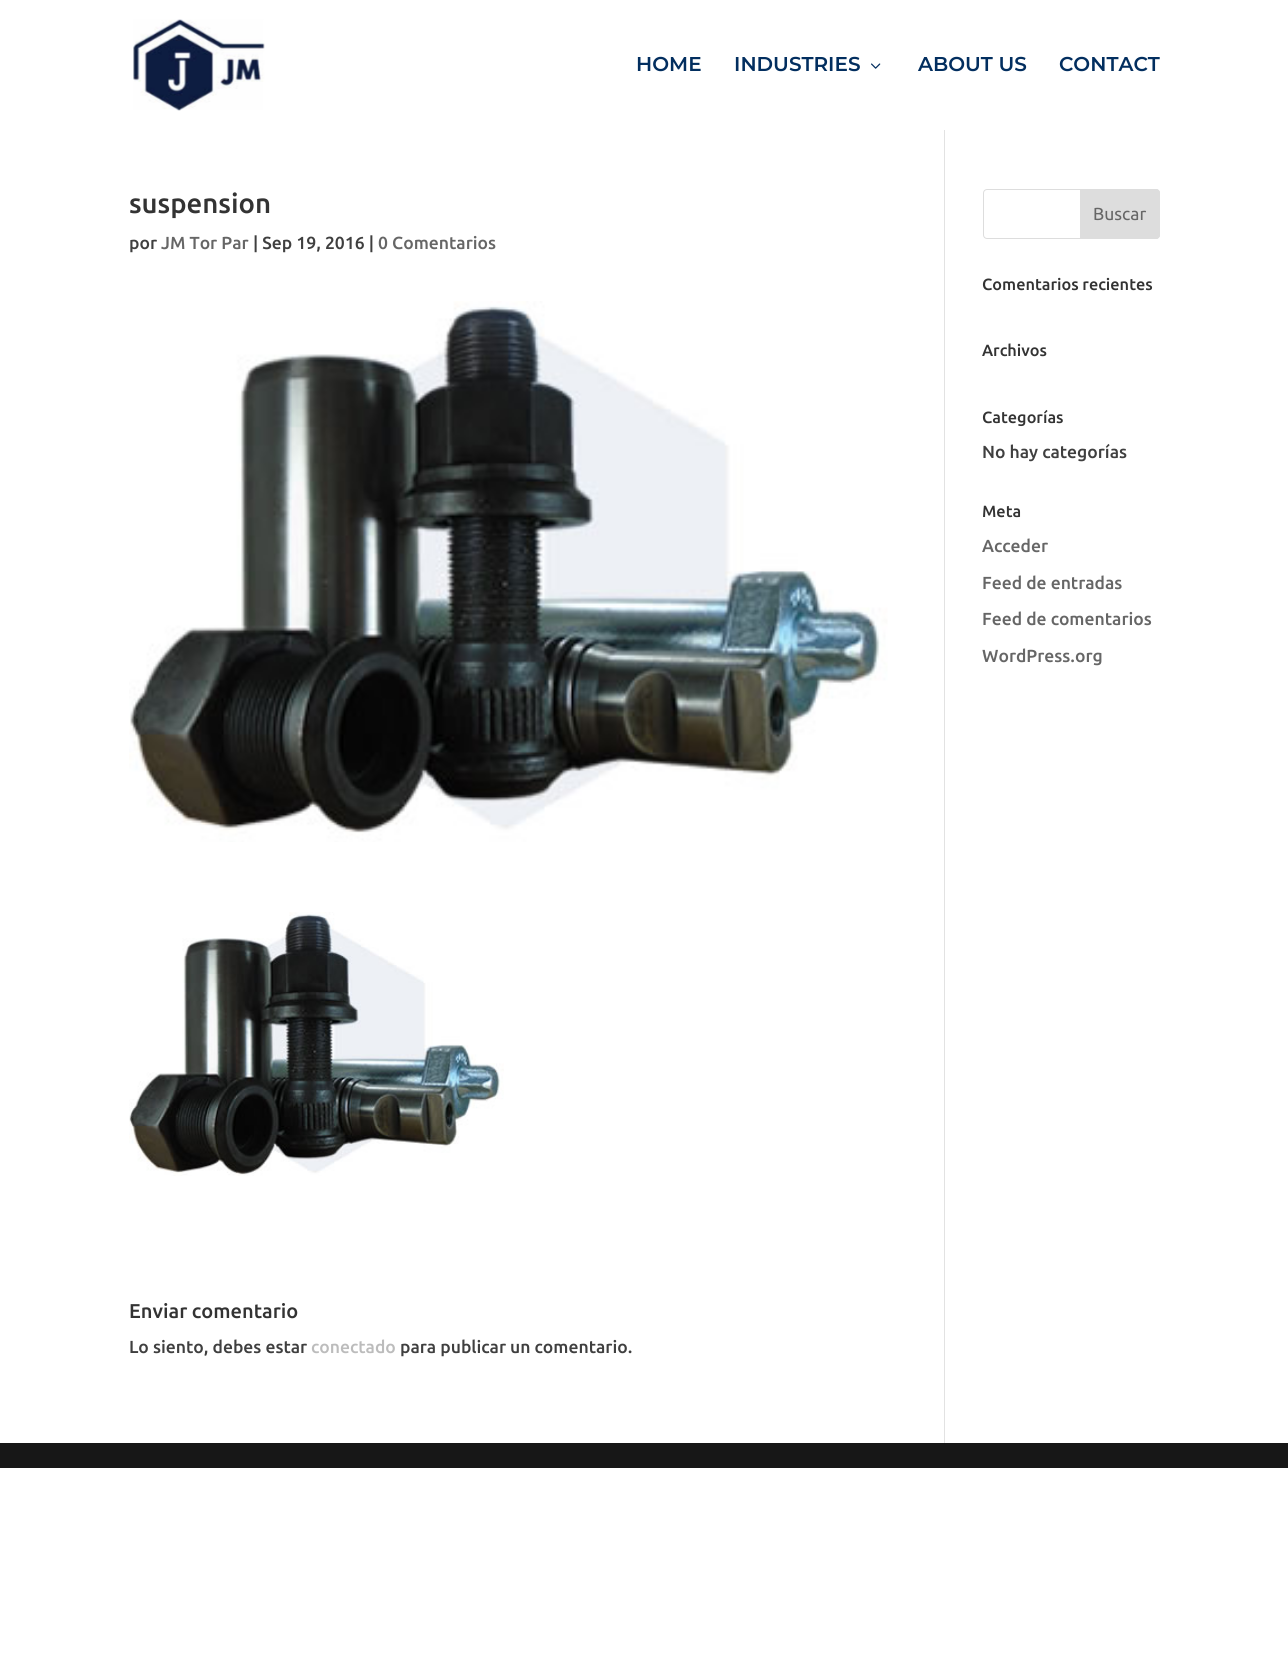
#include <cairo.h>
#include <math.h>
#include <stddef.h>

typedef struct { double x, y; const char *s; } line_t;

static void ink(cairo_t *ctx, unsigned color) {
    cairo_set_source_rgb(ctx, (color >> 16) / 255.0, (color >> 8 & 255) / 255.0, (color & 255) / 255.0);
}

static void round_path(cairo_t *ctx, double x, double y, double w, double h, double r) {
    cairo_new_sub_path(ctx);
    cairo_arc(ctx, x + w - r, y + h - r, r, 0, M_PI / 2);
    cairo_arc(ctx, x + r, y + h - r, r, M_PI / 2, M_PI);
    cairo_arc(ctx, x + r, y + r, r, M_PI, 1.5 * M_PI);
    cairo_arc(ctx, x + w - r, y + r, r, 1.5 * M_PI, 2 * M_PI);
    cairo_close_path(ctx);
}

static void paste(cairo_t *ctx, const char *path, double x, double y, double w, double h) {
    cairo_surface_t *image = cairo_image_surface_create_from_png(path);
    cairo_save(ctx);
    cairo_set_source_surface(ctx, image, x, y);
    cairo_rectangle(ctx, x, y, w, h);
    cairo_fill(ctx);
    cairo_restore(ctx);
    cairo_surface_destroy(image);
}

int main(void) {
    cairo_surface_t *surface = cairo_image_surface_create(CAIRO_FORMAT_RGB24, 1288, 1674);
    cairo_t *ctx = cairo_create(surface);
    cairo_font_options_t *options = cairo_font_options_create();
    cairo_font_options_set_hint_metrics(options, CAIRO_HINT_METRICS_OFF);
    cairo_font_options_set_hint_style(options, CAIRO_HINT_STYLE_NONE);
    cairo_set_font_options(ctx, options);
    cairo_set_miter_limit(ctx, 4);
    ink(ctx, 0xFFFFFF);
    cairo_paint(ctx);
    paste(ctx, "media/1.png", 133, 19, 132, 92);
    cairo_select_font_face(ctx, "Montserrat SemiBold", CAIRO_FONT_SLANT_NORMAL, CAIRO_FONT_WEIGHT_NORMAL);
    cairo_set_font_size(ctx, 20);
    ink(ctx, 0x022E5F);
    cairo_move_to(ctx, 636, 71);
    cairo_show_text(ctx, "HOME");
    cairo_move_to(ctx, 734, 71);
    cairo_show_text(ctx, "INDUSTRIES");
    paste(ctx, "media/2.png", 871, 63, 10, 6);
    cairo_move_to(ctx, 918, 71);
    cairo_show_text(ctx, "ABOUT US");
    cairo_move_to(ctx, 1059, 71);
    cairo_show_text(ctx, "CONTACT");
    ink(ctx, 0xE2E2E2);
    cairo_rectangle(ctx, 944, 130, 1, 1313);
    cairo_fill(ctx);
    cairo_select_font_face(ctx, "Ubuntu Medium", CAIRO_FONT_SLANT_NORMAL, CAIRO_FONT_WEIGHT_NORMAL);
    cairo_set_font_size(ctx, 27.5);
    ink(ctx, 0x333333);
    cairo_move_to(ctx, 129, 213);
    cairo_show_text(ctx, "suspension");
    cairo_set_font_size(ctx, 17.5);
    ink(ctx, 0x3F3F3F);
    cairo_move_to(ctx, 129, 249);
    cairo_show_text(ctx, "por");
    ink(ctx, 0x666666);
    cairo_move_to(ctx, 161, 249);
    cairo_show_text(ctx, "JM Tor Par");
    ink(ctx, 0x3F3F3F);
    cairo_move_to(ctx, 253, 249);
    cairo_show_text(ctx, "| Sep 19, 2016 |");
    ink(ctx, 0x666666);
    cairo_move_to(ctx, 378, 249);
    cairo_show_text(ctx, "0 Comentarios");
    paste(ctx, "media/3.png", 129, 301, 759, 541);
    paste(ctx, "media/4.png", 129, 912, 375, 264);
    cairo_set_font_size(ctx, 20);
    ink(ctx, 0x333333);
    cairo_move_to(ctx, 129, 1318);
    cairo_show_text(ctx, "Enviar comentario");
    cairo_set_font_size(ctx, 17.5);
    ink(ctx, 0x3F3F3F);
    cairo_move_to(ctx, 129, 1353);
    cairo_show_text(ctx, "Lo siento, debes estar");
    ink(ctx, 0xBCBCBC);
    cairo_move_to(ctx, 311, 1353);
    cairo_show_text(ctx, "conectado");
    ink(ctx, 0x3F3F3F);
    cairo_move_to(ctx, 400, 1353);
    cairo_show_text(ctx, "para publicar un comentario.");
    round_path(ctx, 983.5, 189.5, 176, 49, 3.5);
    ink(ctx, 0xDDDDDD);
    cairo_set_line_width(ctx, 1);
    cairo_stroke(ctx);
    cairo_new_path(ctx);
    cairo_move_to(ctx, 1080.5, 189.5);
    cairo_line_to(ctx, 1156, 189.5);
    cairo_curve_to(ctx, 1158, 189.5, 1159.5, 191, 1159.5, 193);
    cairo_line_to(ctx, 1159.5, 235);
    cairo_curve_to(ctx, 1159.5, 237, 1158, 238.5, 1156, 238.5);
    cairo_line_to(ctx, 1080.5, 238.5);
    cairo_close_path(ctx);
    cairo_fill_preserve(ctx);
    cairo_stroke(ctx);
    cairo_select_font_face(ctx, "Ubuntu", CAIRO_FONT_SLANT_NORMAL, CAIRO_FONT_WEIGHT_NORMAL);
    ink(ctx, 0x666666);
    cairo_move_to(ctx, 1093, 220);
    cairo_show_text(ctx, "Buscar");
    cairo_select_font_face(ctx, "Ubuntu Medium", CAIRO_FONT_SLANT_NORMAL, CAIRO_FONT_WEIGHT_NORMAL);
    cairo_set_font_size(ctx, 16.25);
    ink(ctx, 0x333333);
    {
        static const line_t items[] = {
            {982, 290, "Comentarios recientes"},
            {982, 356, "Archivos"},
            {982, 423, "Categorías"},
        };
        for (size_t i = 0; i < sizeof items / sizeof *items; i++) {
            cairo_move_to(ctx, items[i].x, items[i].y);
            cairo_show_text(ctx, items[i].s);
        }
    }
    cairo_set_font_size(ctx, 17.5);
    ink(ctx, 0x3F3F3F);
    cairo_move_to(ctx, 982, 458);
    cairo_show_text(ctx, "No hay categorías");
    cairo_set_font_size(ctx, 16.25);
    ink(ctx, 0x333333);
    cairo_move_to(ctx, 982, 517);
    cairo_show_text(ctx, "Meta");
    cairo_set_font_size(ctx, 17.5);
    ink(ctx, 0x666666);
    {
        static const line_t items[] = {
            {982, 552, "Acceder"},
            {982, 589, "Feed de entradas"},
            {982, 625, "Feed de comentarios"},
            {982, 662, "WordPress.org"},
        };
        for (size_t i = 0; i < sizeof items / sizeof *items; i++) {
            cairo_move_to(ctx, items[i].x, items[i].y);
            cairo_show_text(ctx, items[i].s);
        }
    }
    ink(ctx, 0x171717);
    cairo_rectangle(ctx, 0, 1443, 1288, 25);
    cairo_fill(ctx);
    cairo_surface_write_to_png(surface, "image.png");
    cairo_font_options_destroy(options);
    cairo_destroy(ctx);
    cairo_surface_destroy(surface);
    return 0;
}
